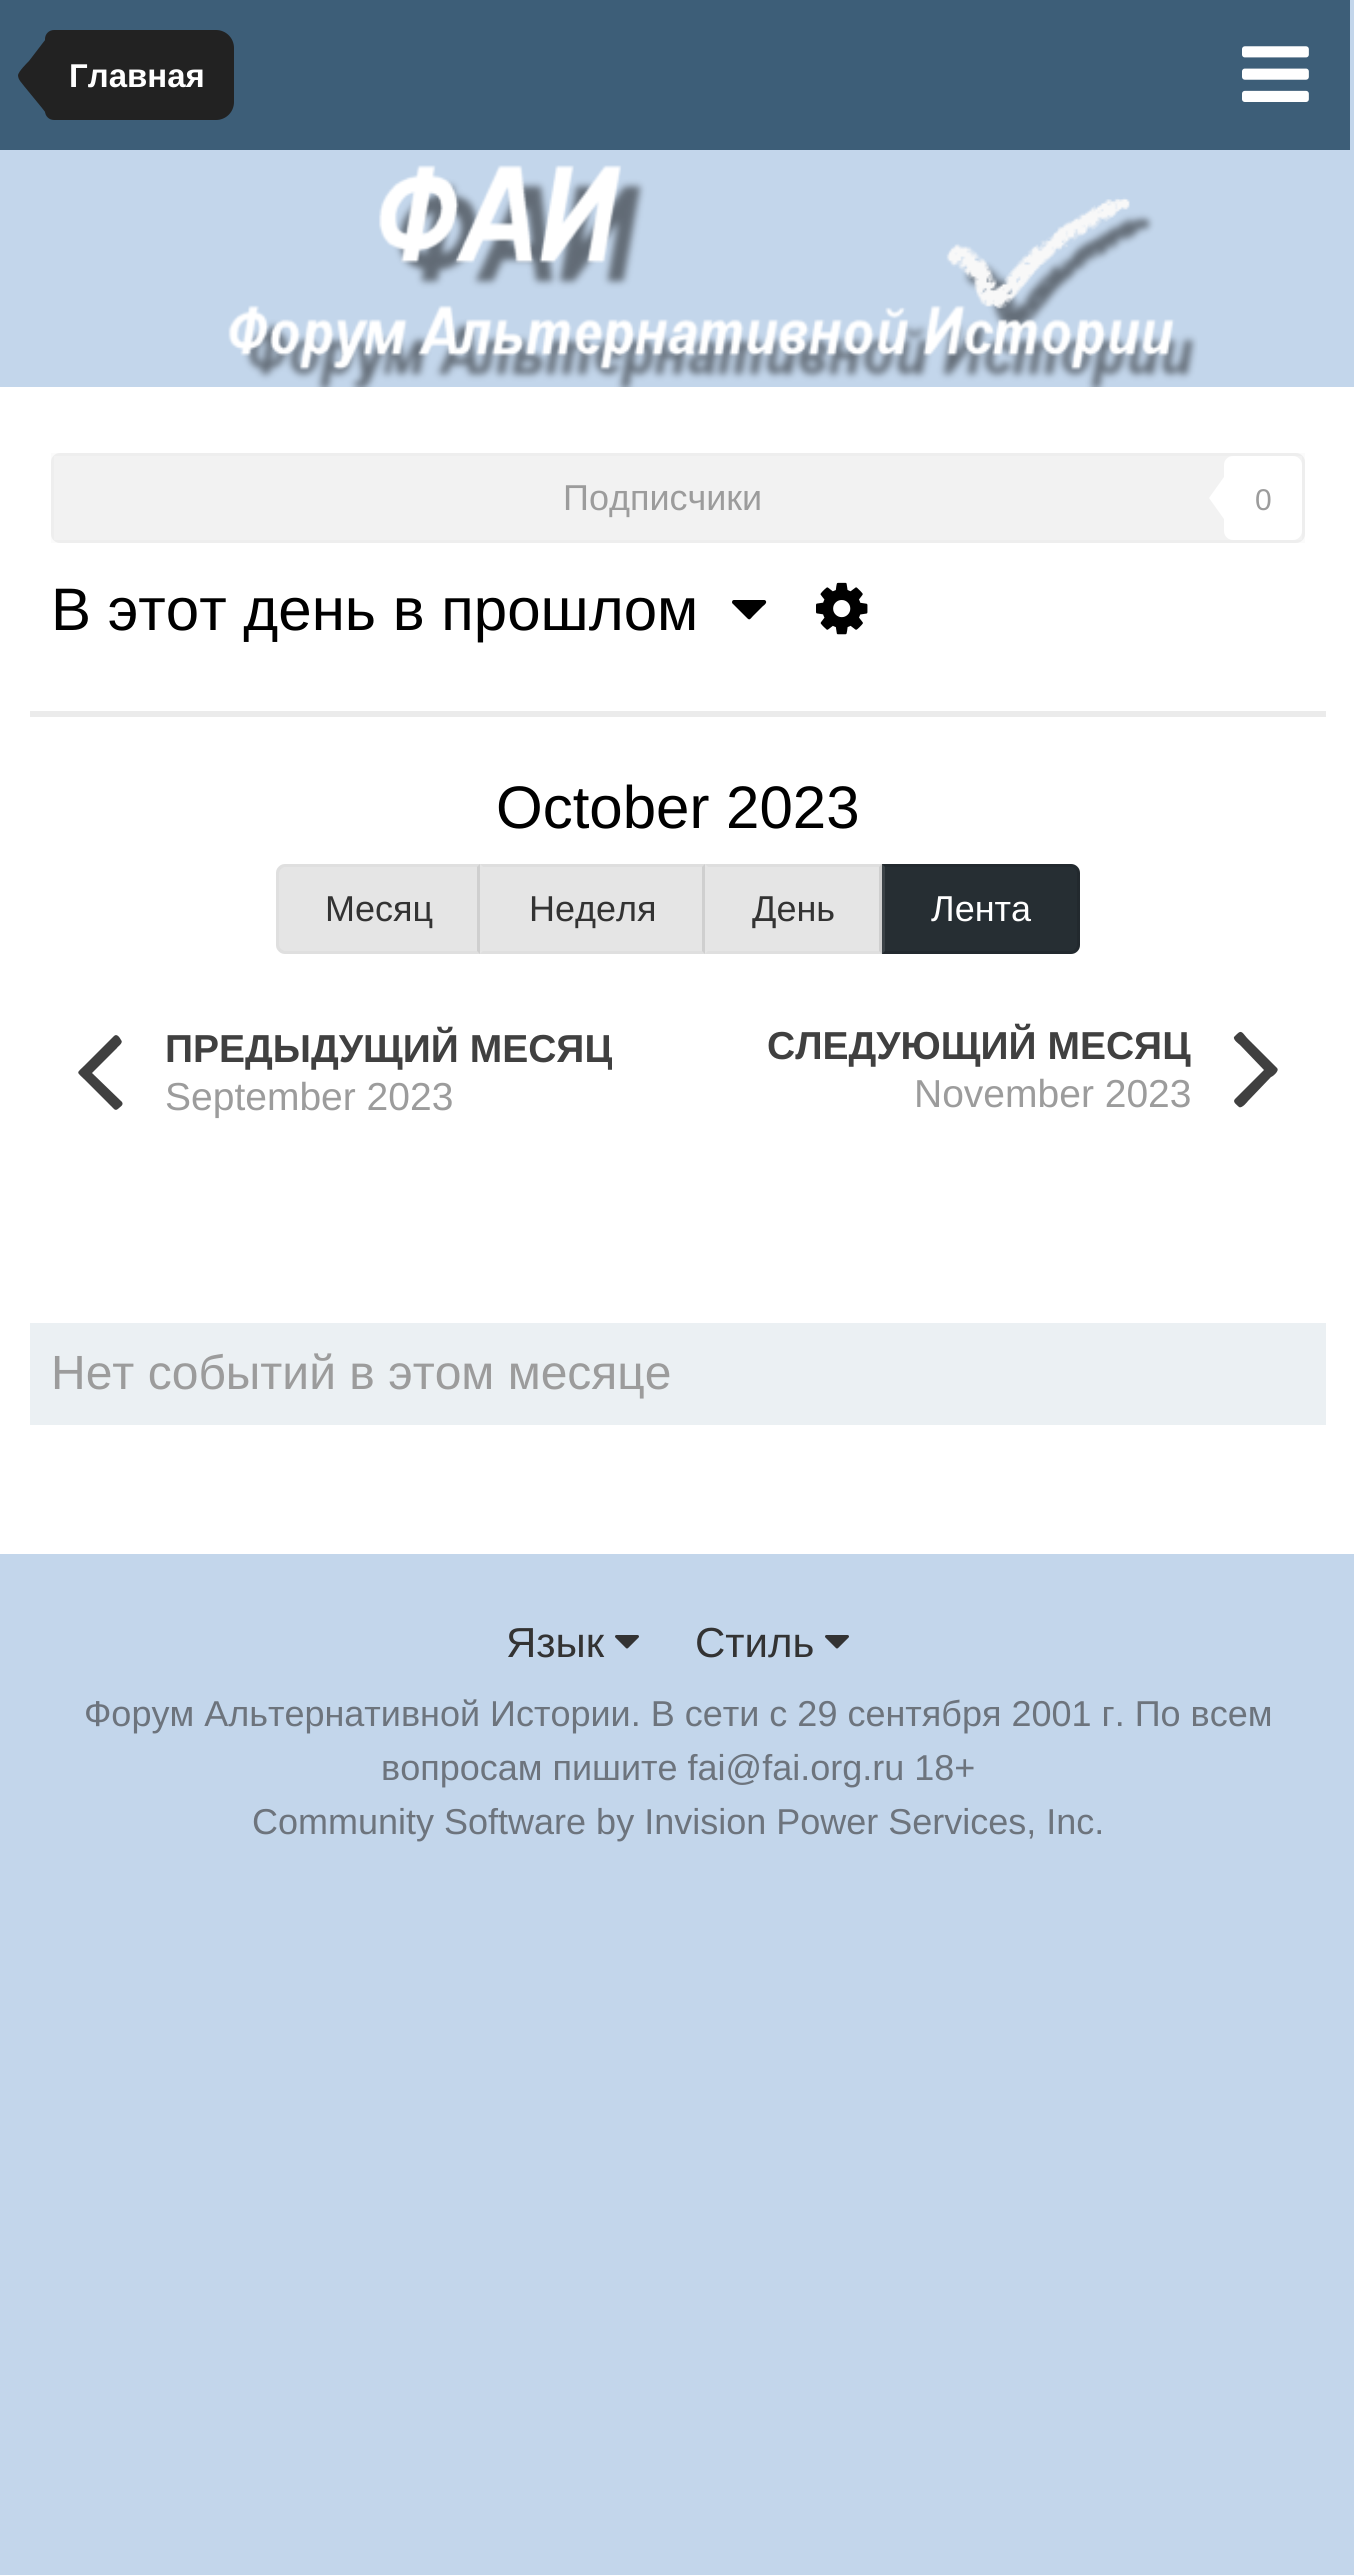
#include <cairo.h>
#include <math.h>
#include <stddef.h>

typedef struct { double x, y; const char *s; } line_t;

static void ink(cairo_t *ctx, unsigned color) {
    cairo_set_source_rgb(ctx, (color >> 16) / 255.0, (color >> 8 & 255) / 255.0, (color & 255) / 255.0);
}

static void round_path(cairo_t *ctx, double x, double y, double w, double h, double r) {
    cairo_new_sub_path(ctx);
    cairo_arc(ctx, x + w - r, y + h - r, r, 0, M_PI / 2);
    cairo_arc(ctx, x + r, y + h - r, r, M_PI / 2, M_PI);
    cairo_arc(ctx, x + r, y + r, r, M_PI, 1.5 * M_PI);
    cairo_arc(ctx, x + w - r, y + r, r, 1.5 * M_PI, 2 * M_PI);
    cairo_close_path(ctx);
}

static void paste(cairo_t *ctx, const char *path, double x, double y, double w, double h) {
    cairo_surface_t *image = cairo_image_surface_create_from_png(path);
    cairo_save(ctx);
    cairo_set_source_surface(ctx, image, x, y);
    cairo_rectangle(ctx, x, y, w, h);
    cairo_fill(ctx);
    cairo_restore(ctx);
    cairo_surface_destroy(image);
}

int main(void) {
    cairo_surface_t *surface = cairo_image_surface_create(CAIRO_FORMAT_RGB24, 1354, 2575);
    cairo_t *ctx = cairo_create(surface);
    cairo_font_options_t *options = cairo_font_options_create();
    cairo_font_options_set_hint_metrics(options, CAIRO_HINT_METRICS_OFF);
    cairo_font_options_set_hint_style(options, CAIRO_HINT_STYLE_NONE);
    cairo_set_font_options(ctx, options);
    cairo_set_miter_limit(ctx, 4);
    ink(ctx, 0xC3D6EB);
    cairo_paint(ctx);
    ink(ctx, 0x3D5E78);
    cairo_rectangle(ctx, 0, 0, 1350, 150);
    cairo_fill(ctx);
    ink(ctx, 0x222222);
    cairo_new_path(ctx);
    cairo_move_to(ctx, 54, 30);
    cairo_line_to(ctx, 216, 30);
    cairo_curve_to(ctx, 226, 30, 234, 38, 234, 48);
    cairo_line_to(ctx, 234, 102);
    cairo_curve_to(ctx, 234, 112, 226, 120, 216, 120);
    cairo_line_to(ctx, 54, 120);
    cairo_curve_to(ctx, 49, 120, 45, 116, 45, 111);
    cairo_line_to(ctx, 45, 39);
    cairo_curve_to(ctx, 45, 34, 49, 30, 54, 30);
    cairo_close_path(ctx);
    cairo_fill(ctx);
    cairo_save(ctx);
    cairo_rectangle(ctx, 15, 27, 33, 90);
    cairo_clip(ctx);
    cairo_new_path(ctx);
    cairo_move_to(ctx, 78, 73);
    cairo_curve_to(ctx, 78, 76, 79, 84, 74, 86);
    cairo_line_to(ctx, 45, 86);
    cairo_line_to(ctx, 52, 96);
    cairo_curve_to(ctx, 57, 101, 60, 104, 55, 111);
    cairo_line_to(ctx, 52, 114);
    cairo_curve_to(ctx, 48, 118, 44, 110, 42, 108);
    cairo_line_to(ctx, 24, 86);
    cairo_curve_to(ctx, 22, 83, 18, 80, 18, 75);
    cairo_curve_to(ctx, 19, 71, 26, 64, 29, 61);
    cairo_line_to(ctx, 42, 44);
    cairo_curve_to(ctx, 46, 39, 49, 33, 54, 40);
    cairo_curve_to(ctx, 60, 47, 58, 50, 52, 57);
    cairo_line_to(ctx, 45, 66);
    cairo_line_to(ctx, 63, 66);
    cairo_curve_to(ctx, 70, 66, 78, 64, 78, 73);
    cairo_close_path(ctx);
    cairo_fill(ctx);
    cairo_restore(ctx);
    cairo_select_font_face(ctx, "Liberation Sans", CAIRO_FONT_SLANT_NORMAL, CAIRO_FONT_WEIGHT_BOLD);
    cairo_set_font_size(ctx, 33);
    ink(ctx, 0xFFFFFF);
    cairo_move_to(ctx, 69, 87);
    cairo_show_text(ctx, "Главная");
    paste(ctx, "media/1.png", 1242, 46, 67, 56);
    paste(ctx, "media/2.png", 228, 165, 970, 222);
    cairo_rectangle(ctx, 0, 387, 1354, 1167);
    cairo_fill(ctx);
    ink(ctx, 0xF2F2F2);
    round_path(ctx, 51, 453, 1254, 90, 9);
    cairo_fill(ctx);
    cairo_rectangle(ctx, 52.5, 454.5, 1251, 87);
    cairo_set_source_rgba(ctx, 0.502, 0.502, 0.502, 0.03);
    cairo_set_line_width(ctx, 3);
    cairo_stroke(ctx);
    cairo_select_font_face(ctx, "Liberation Sans", CAIRO_FONT_SLANT_NORMAL, CAIRO_FONT_WEIGHT_NORMAL);
    cairo_set_font_size(ctx, 36);
    ink(ctx, 0x9C9C9C);
    cairo_move_to(ctx, 563, 510);
    cairo_show_text(ctx, "Подписчики");
    ink(ctx, 0xFFFFFF);
    round_path(ctx, 1224, 456, 78, 84, 9);
    cairo_fill(ctx);
    cairo_new_path(ctx);
    cairo_move_to(ctx, 1224, 477);
    cairo_line_to(ctx, 1224, 519);
    cairo_line_to(ctx, 1209, 498);
    cairo_close_path(ctx);
    cairo_fill(ctx);
    cairo_set_font_size(ctx, 30);
    ink(ctx, 0x9C9C9C);
    cairo_move_to(ctx, 1255, 510);
    cairo_show_text(ctx, "0");
    cairo_set_font_size(ctx, 60);
    ink(ctx, 0x000000);
    cairo_move_to(ctx, 51, 630);
    cairo_show_text(ctx, "В этот день в прошлом");
    cairo_new_path(ctx);
    cairo_move_to(ctx, 765.5, 600.5);
    cairo_curve_to(ctx, 767.5, 602.5, 764.5, 605, 763, 606);
    cairo_line_to(ctx, 753, 616);
    cairo_curve_to(ctx, 749, 620.5, 749.5, 620.5, 745, 616);
    cairo_line_to(ctx, 732.5, 603.5);
    cairo_curve_to(ctx, 731.5, 602.5, 732, 600, 734, 600);
    cairo_line_to(ctx, 764.5, 600);
    cairo_close_path(ctx);
    cairo_fill(ctx);
    paste(ctx, "media/3.png", 816, 582, 52, 53);
    ink(ctx, 0xEBEBEB);
    cairo_rectangle(ctx, 30, 711, 1296, 6);
    cairo_fill(ctx);
    ink(ctx, 0x000000);
    cairo_move_to(ctx, 496, 828);
    cairo_show_text(ctx, "October 2023");
    ink(ctx, 0xE5E5E5);
    cairo_new_path(ctx);
    cairo_move_to(ctx, 285, 864);
    cairo_line_to(ctx, 480, 864);
    cairo_line_to(ctx, 480, 954);
    cairo_line_to(ctx, 285, 954);
    cairo_curve_to(ctx, 280, 954, 276, 950, 276, 945);
    cairo_line_to(ctx, 276, 873);
    cairo_curve_to(ctx, 276, 868, 280, 864, 285, 864);
    cairo_close_path(ctx);
    cairo_fill(ctx);
    cairo_set_source_rgba(ctx, 0, 0, 0, 0.03);
    cairo_new_path(ctx);
    cairo_move_to(ctx, 285, 864);
    cairo_curve_to(ctx, 282, 864, 280, 865, 279, 867);
    cairo_line_to(ctx, 281, 869);
    cairo_line_to(ctx, 284, 867);
    cairo_line_to(ctx, 477, 867);
    cairo_line_to(ctx, 480, 864);
    cairo_close_path(ctx);
    cairo_fill(ctx);
    cairo_set_source_rgba(ctx, 0, 0, 0, 0.1);
    cairo_new_path(ctx);
    cairo_move_to(ctx, 480, 864);
    cairo_line_to(ctx, 477, 867);
    cairo_line_to(ctx, 477, 951);
    cairo_line_to(ctx, 480, 954);
    cairo_close_path(ctx);
    cairo_fill(ctx);
    cairo_set_source_rgba(ctx, 0, 0, 0, 0.03);
    cairo_new_path(ctx);
    cairo_move_to(ctx, 480, 954);
    cairo_line_to(ctx, 477, 951);
    cairo_line_to(ctx, 284, 951);
    cairo_line_to(ctx, 281, 949);
    cairo_line_to(ctx, 279, 951);
    cairo_curve_to(ctx, 280, 953, 282, 954, 285, 954);
    cairo_close_path(ctx);
    cairo_fill(ctx);
    cairo_new_path(ctx);
    cairo_move_to(ctx, 276, 873);
    cairo_line_to(ctx, 276, 945);
    cairo_curve_to(ctx, 276, 948, 277, 950, 279, 951);
    cairo_line_to(ctx, 281, 949);
    cairo_curve_to(ctx, 280, 948, 279, 946, 279, 945);
    cairo_line_to(ctx, 279, 873);
    cairo_curve_to(ctx, 279, 872, 280, 870, 281, 869);
    cairo_line_to(ctx, 279, 867);
    cairo_curve_to(ctx, 277, 868, 276, 870, 276, 873);
    cairo_close_path(ctx);
    cairo_fill(ctx);
    cairo_set_font_size(ctx, 36);
    ink(ctx, 0x333333);
    cairo_move_to(ctx, 325, 921);
    cairo_show_text(ctx, "Месяц");
    ink(ctx, 0xE5E5E5);
    cairo_rectangle(ctx, 480, 864, 402, 90);
    cairo_fill(ctx);
    ink(ctx, 0xDEDEDE);
    cairo_new_path(ctx);
    cairo_move_to(ctx, 480, 864);
    cairo_line_to(ctx, 705, 864);
    cairo_line_to(ctx, 702, 867);
    cairo_line_to(ctx, 483, 867);
    cairo_close_path(ctx);
    cairo_fill(ctx);
    cairo_set_source_rgba(ctx, 0, 0, 0, 0.1);
    cairo_new_path(ctx);
    cairo_move_to(ctx, 705, 864);
    cairo_line_to(ctx, 705, 954);
    cairo_line_to(ctx, 702, 951);
    cairo_line_to(ctx, 702, 867);
    cairo_close_path(ctx);
    cairo_fill(ctx);
    cairo_set_source_rgba(ctx, 0, 0, 0, 0.03);
    cairo_new_path(ctx);
    cairo_move_to(ctx, 705, 954);
    cairo_line_to(ctx, 480, 954);
    cairo_line_to(ctx, 483, 951);
    cairo_line_to(ctx, 702, 951);
    cairo_close_path(ctx);
    cairo_fill(ctx);
    ink(ctx, 0x333333);
    cairo_move_to(ctx, 529, 921);
    cairo_show_text(ctx, "Неделя");
    ink(ctx, 0xDEDEDE);
    cairo_new_path(ctx);
    cairo_move_to(ctx, 705, 864);
    cairo_line_to(ctx, 882, 864);
    cairo_line_to(ctx, 879, 867);
    cairo_line_to(ctx, 708, 867);
    cairo_close_path(ctx);
    cairo_fill(ctx);
    cairo_set_source_rgba(ctx, 0, 0, 0, 0.1);
    cairo_new_path(ctx);
    cairo_move_to(ctx, 882, 864);
    cairo_line_to(ctx, 882, 954);
    cairo_line_to(ctx, 879, 951);
    cairo_line_to(ctx, 879, 867);
    cairo_close_path(ctx);
    cairo_fill(ctx);
    cairo_set_source_rgba(ctx, 0, 0, 0, 0.03);
    cairo_new_path(ctx);
    cairo_move_to(ctx, 882, 954);
    cairo_line_to(ctx, 705, 954);
    cairo_line_to(ctx, 708, 951);
    cairo_line_to(ctx, 879, 951);
    cairo_close_path(ctx);
    cairo_fill(ctx);
    ink(ctx, 0x333333);
    cairo_move_to(ctx, 752, 921);
    cairo_show_text(ctx, "День");
    ink(ctx, 0x262E33);
    cairo_new_path(ctx);
    cairo_move_to(ctx, 882, 864);
    cairo_line_to(ctx, 1071, 864);
    cairo_curve_to(ctx, 1076, 864, 1080, 868, 1080, 873);
    cairo_line_to(ctx, 1080, 945);
    cairo_curve_to(ctx, 1080, 950, 1076, 954, 1071, 954);
    cairo_line_to(ctx, 882, 954);
    cairo_close_path(ctx);
    cairo_fill(ctx);
    cairo_set_source_rgba(ctx, 0, 0, 0, 0.1);
    cairo_new_path(ctx);
    cairo_move_to(ctx, 882, 864);
    cairo_line_to(ctx, 885, 867);
    cairo_line_to(ctx, 1072, 867);
    cairo_line_to(ctx, 1075, 869);
    cairo_line_to(ctx, 1077, 867);
    cairo_curve_to(ctx, 1076, 865, 1074, 864, 1071, 864);
    cairo_close_path(ctx);
    cairo_fill(ctx);
    cairo_new_path(ctx);
    cairo_move_to(ctx, 1080, 945);
    cairo_line_to(ctx, 1080, 873);
    cairo_curve_to(ctx, 1080, 870, 1079, 868, 1077, 867);
    cairo_line_to(ctx, 1075, 869);
    cairo_curve_to(ctx, 1076, 870, 1077, 872, 1077, 873);
    cairo_line_to(ctx, 1077, 945);
    cairo_curve_to(ctx, 1077, 946, 1076, 948, 1075, 949);
    cairo_line_to(ctx, 1077, 951);
    cairo_curve_to(ctx, 1079, 950, 1080, 948, 1080, 945);
    cairo_close_path(ctx);
    cairo_fill(ctx);
    cairo_new_path(ctx);
    cairo_move_to(ctx, 1071, 954);
    cairo_curve_to(ctx, 1074, 954, 1076, 953, 1077, 951);
    cairo_line_to(ctx, 1075, 949);
    cairo_line_to(ctx, 1072, 951);
    cairo_line_to(ctx, 885, 951);
    cairo_line_to(ctx, 882, 954);
    cairo_close_path(ctx);
    cairo_fill(ctx);
    cairo_set_source_rgba(ctx, 1, 1, 1, 0.1);
    cairo_new_path(ctx);
    cairo_move_to(ctx, 882, 864);
    cairo_line_to(ctx, 882, 954);
    cairo_line_to(ctx, 885, 951);
    cairo_line_to(ctx, 885, 867);
    cairo_close_path(ctx);
    cairo_fill(ctx);
    ink(ctx, 0xFFFFFF);
    cairo_move_to(ctx, 931, 921);
    cairo_show_text(ctx, "Лента");
    ink(ctx, 0x404040);
    cairo_new_path(ctx);
    cairo_move_to(ctx, 121, 1040);
    cairo_curve_to(ctx, 124, 1043, 117, 1047, 117, 1048);
    cairo_line_to(ctx, 92, 1073);
    cairo_line_to(ctx, 122, 1102);
    cairo_curve_to(ctx, 124, 1105, 120, 1107, 119, 1108);
    cairo_curve_to(ctx, 118, 1109, 116, 1111, 114, 1109);
    cairo_line_to(ctx, 85, 1080);
    cairo_curve_to(ctx, 76, 1071, 76, 1074, 85, 1065);
    cairo_line_to(ctx, 114, 1036);
    cairo_curve_to(ctx, 117, 1033, 120, 1038, 121, 1040);
    cairo_close_path(ctx);
    cairo_fill(ctx);
    cairo_save(ctx);
    cairo_rectangle(ctx, 165, 1017, 447, 54);
    cairo_clip(ctx);
    cairo_select_font_face(ctx, "Liberation Sans", CAIRO_FONT_SLANT_NORMAL, CAIRO_FONT_WEIGHT_BOLD);
    cairo_set_font_size(ctx, 39);
    cairo_move_to(ctx, 165, 1062);
    cairo_show_text(ctx, "ПРЕДЫДУЩИЙ МЕСЯЦ");
    cairo_restore(ctx);
    cairo_set_font_size(ctx, 39);
    ink(ctx, 0x9C9C9C);
    cairo_move_to(ctx, 165, 1110);
    cairo_show_text(ctx, "September 2023");
    cairo_select_font_face(ctx, "Liberation Sans", CAIRO_FONT_SLANT_NORMAL, CAIRO_FONT_WEIGHT_BOLD);
    ink(ctx, 0x404040);
    cairo_move_to(ctx, 767, 1059);
    cairo_show_text(ctx, "СЛЕДУЮЩИЙ МЕСЯЦ");
    cairo_new_path(ctx);
    cairo_move_to(ctx, 1277, 1068);
    cairo_curve_to(ctx, 1280, 1071, 1272, 1077, 1271, 1077);
    cairo_line_to(ctx, 1248, 1101);
    cairo_curve_to(ctx, 1248, 1101, 1242, 1109, 1239, 1107);
    cairo_curve_to(ctx, 1237, 1105, 1232, 1102, 1235, 1099);
    cairo_line_to(ctx, 1264, 1070);
    cairo_line_to(ctx, 1240, 1045);
    cairo_curve_to(ctx, 1239, 1044, 1233, 1040, 1234, 1037);
    cairo_line_to(ctx, 1237, 1034);
    cairo_curve_to(ctx, 1242, 1029, 1243, 1034, 1248, 1039);
    cairo_close_path(ctx);
    cairo_fill(ctx);
    cairo_select_font_face(ctx, "Liberation Sans", CAIRO_FONT_SLANT_NORMAL, CAIRO_FONT_WEIGHT_NORMAL);
    ink(ctx, 0x9C9C9C);
    cairo_move_to(ctx, 914, 1107);
    cairo_show_text(ctx, "November 2023");
    ink(ctx, 0xEBF0F3);
    cairo_rectangle(ctx, 30, 1323, 1296, 102);
    cairo_fill(ctx);
    cairo_set_font_size(ctx, 48);
    ink(ctx, 0x9C9C9C);
    cairo_move_to(ctx, 51, 1389);
    cairo_show_text(ctx, "Нет событий в этом месяце");
    cairo_set_font_size(ctx, 42);
    ink(ctx, 0x333333);
    cairo_move_to(ctx, 506, 1657);
    cairo_show_text(ctx, "Язык");
    paste(ctx, "media/4.png", 615, 1635, 24, 14);
    cairo_move_to(ctx, 695, 1657);
    cairo_show_text(ctx, "Стиль");
    paste(ctx, "media/4.png", 825, 1635, 24, 14);
    cairo_set_font_size(ctx, 36);
    ink(ctx, 0x6D747D);
    {
        static const line_t items[] = {
            {84, 1726, "Форум Альтернативной Истории. В сети с 29 сентября 2001 г. По всем"},
            {381, 1780, "вопросам пишите fai@fai.org.ru 18+"},
            {252, 1834, "Community Software by Invision Power Services, Inc."},
        };
        for (size_t i = 0; i < sizeof items / sizeof *items; i++) {
            cairo_move_to(ctx, items[i].x, items[i].y);
            cairo_show_text(ctx, items[i].s);
        }
    }
    cairo_surface_write_to_png(surface, "image.png");
    cairo_font_options_destroy(options);
    cairo_destroy(ctx);
    cairo_surface_destroy(surface);
    return 0;
}
